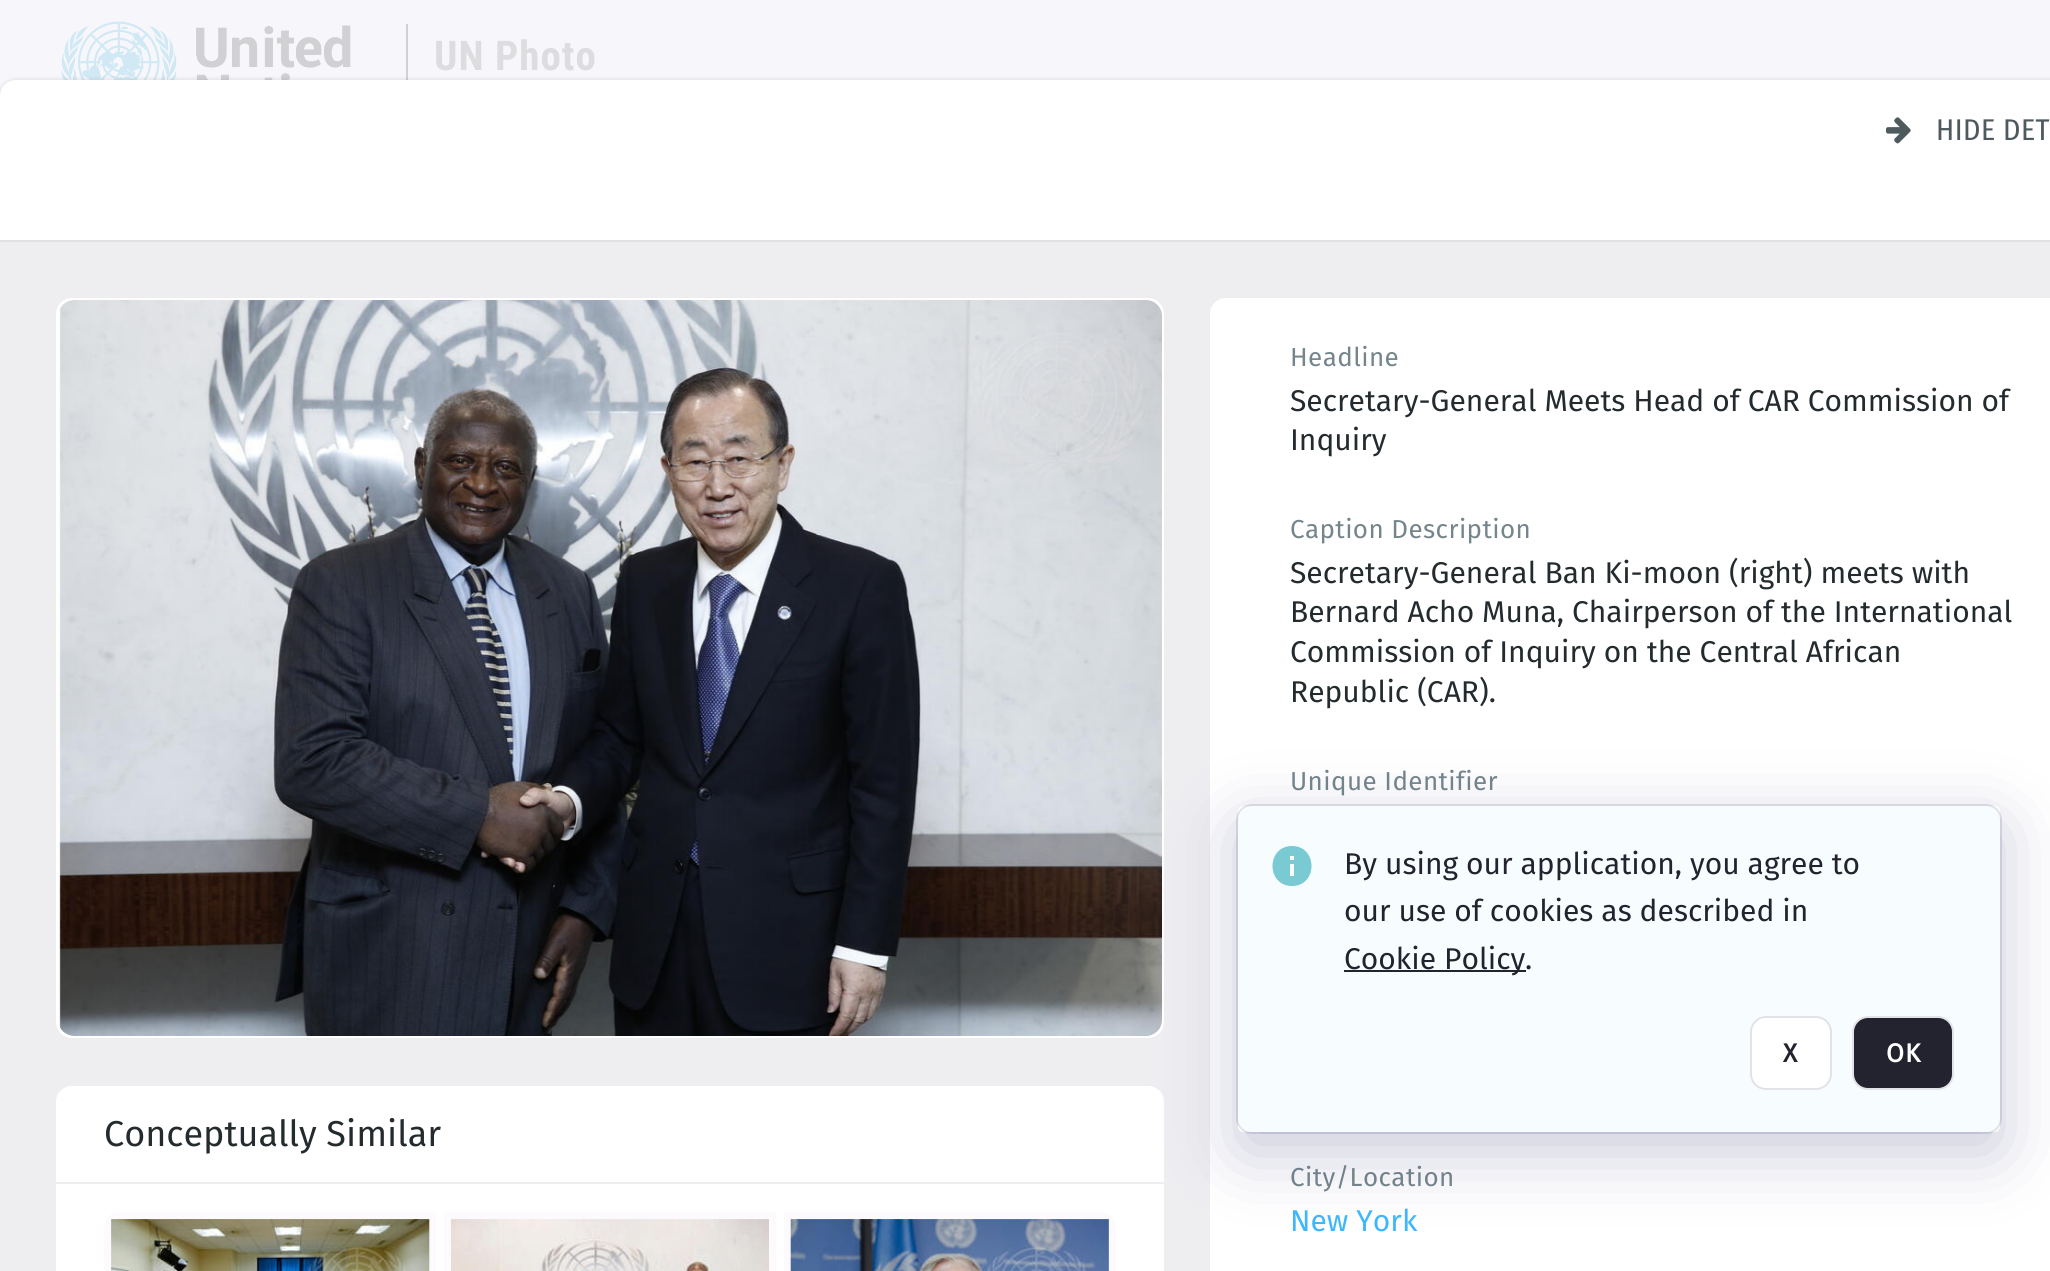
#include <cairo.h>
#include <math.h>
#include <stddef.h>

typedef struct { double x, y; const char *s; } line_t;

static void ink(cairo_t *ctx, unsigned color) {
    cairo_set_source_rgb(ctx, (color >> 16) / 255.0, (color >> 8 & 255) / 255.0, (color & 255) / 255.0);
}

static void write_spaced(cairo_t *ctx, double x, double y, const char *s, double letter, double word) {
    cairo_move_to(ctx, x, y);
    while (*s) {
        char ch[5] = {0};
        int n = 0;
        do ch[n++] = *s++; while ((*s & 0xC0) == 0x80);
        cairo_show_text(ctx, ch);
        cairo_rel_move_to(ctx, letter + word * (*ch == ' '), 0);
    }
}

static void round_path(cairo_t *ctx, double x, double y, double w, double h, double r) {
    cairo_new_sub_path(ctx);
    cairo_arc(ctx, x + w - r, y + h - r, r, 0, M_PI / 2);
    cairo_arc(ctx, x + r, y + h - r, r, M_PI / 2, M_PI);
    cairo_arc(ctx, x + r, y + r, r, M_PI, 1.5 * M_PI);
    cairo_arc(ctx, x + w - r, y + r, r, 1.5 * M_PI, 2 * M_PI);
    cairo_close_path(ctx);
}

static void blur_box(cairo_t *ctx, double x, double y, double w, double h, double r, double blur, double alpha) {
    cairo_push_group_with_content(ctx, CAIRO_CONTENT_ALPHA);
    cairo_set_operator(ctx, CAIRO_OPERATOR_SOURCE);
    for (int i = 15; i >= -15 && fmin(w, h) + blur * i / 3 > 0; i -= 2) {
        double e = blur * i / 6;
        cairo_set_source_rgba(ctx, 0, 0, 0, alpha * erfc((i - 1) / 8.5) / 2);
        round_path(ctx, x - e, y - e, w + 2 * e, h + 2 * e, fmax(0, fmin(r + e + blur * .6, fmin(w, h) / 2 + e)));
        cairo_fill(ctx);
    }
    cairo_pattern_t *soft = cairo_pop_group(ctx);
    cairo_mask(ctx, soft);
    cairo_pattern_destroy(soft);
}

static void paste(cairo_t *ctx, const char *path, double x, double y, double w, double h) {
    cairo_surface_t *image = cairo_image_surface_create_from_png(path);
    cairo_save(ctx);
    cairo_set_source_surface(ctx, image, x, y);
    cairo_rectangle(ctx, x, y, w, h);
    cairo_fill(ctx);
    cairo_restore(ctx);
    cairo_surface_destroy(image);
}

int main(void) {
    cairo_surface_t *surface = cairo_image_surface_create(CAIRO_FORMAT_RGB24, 2050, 1271);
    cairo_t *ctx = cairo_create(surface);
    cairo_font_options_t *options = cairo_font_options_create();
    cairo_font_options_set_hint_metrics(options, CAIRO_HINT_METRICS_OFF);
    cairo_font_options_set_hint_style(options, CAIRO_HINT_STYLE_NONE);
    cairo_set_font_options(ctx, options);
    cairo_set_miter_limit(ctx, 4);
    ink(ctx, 0xF7F7FB);
    cairo_paint(ctx);
    paste(ctx, "media/1.png", 61, 21, 290, 59);
    ink(ctx, 0xD1D1D5);
    cairo_rectangle(ctx, 406, 24, 2, 56);
    cairo_fill(ctx);
    cairo_select_font_face(ctx, "Roboto Condensed", CAIRO_FONT_SLANT_NORMAL, CAIRO_FONT_WEIGHT_BOLD);
    cairo_set_font_size(ctx, 41);
    ink(ctx, 0xDDDDE0);
    write_spaced(ctx, 434, 70, "UN Photo", 1, 0);
    ink(ctx, 0x000000);
    blur_box(ctx, 0, 80, 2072, 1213, 16, 2, 0.06);
    blur_box(ctx, 0, 80, 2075, 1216, 16, 3, 0.08);
    ink(ctx, 0xFFFFFF);
    cairo_new_path(ctx);
    cairo_move_to(ctx, 16, 80);
    cairo_line_to(ctx, 2050, 80);
    cairo_line_to(ctx, 2050, 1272);
    cairo_line_to(ctx, 0, 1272);
    cairo_line_to(ctx, 0, 96);
    cairo_curve_to(ctx, 0, 87, 7, 80, 16, 80);
    cairo_close_path(ctx);
    cairo_fill(ctx);
    paste(ctx, "media/2.png", 1886, 117, 25, 27);
    cairo_select_font_face(ctx, "Fira Sans Condensed", CAIRO_FONT_SLANT_NORMAL, CAIRO_FONT_WEIGHT_NORMAL);
    cairo_set_font_size(ctx, 30);
    ink(ctx, 0x4F5A5F);
    write_spaced(ctx, 1936, 140, "HIDE DET", 0.5, 0);
    ink(ctx, 0xDFE0E4);
    cairo_rectangle(ctx, 0, 240, 2050, 2);
    cairo_fill(ctx);
    ink(ctx, 0xEEEEF1);
    cairo_rectangle(ctx, 0, 242, 2050, 1029);
    cairo_fill(ctx);
    ink(ctx, 0xFFFFFF);
    round_path(ctx, 56, 298, 1108, 740, 16);
    cairo_fill(ctx);
    paste(ctx, "media/3.png", 59, 300, 1103, 736);
    cairo_new_path(ctx);
    cairo_move_to(ctx, 72, 1086);
    cairo_line_to(ctx, 1148, 1086);
    cairo_curve_to(ctx, 1157, 1086, 1164, 1093, 1164, 1102);
    cairo_line_to(ctx, 1164, 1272);
    cairo_line_to(ctx, 56, 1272);
    cairo_line_to(ctx, 56, 1102);
    cairo_curve_to(ctx, 56, 1093, 63, 1086, 72, 1086);
    cairo_close_path(ctx);
    cairo_fill(ctx);
    cairo_select_font_face(ctx, "Fira Sans", CAIRO_FONT_SLANT_NORMAL, CAIRO_FONT_WEIGHT_NORMAL);
    cairo_set_font_size(ctx, 36);
    ink(ctx, 0x242B2E);
    cairo_move_to(ctx, 104, 1146);
    cairo_show_text(ctx, "Conceptually Similar");
    ink(ctx, 0xFCFAFC);
    cairo_new_path(ctx);
    cairo_move_to(ctx, 120, 1212);
    cairo_line_to(ctx, 436, 1212);
    cairo_line_to(ctx, 436, 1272);
    cairo_line_to(ctx, 104, 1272);
    cairo_line_to(ctx, 104, 1228);
    cairo_curve_to(ctx, 104, 1219, 111, 1212, 120, 1212);
    cairo_close_path(ctx);
    cairo_fill(ctx);
    paste(ctx, "media/4.png", 111, 1219, 319, 52);
    cairo_rectangle(ctx, 444, 1212, 332, 59);
    cairo_fill(ctx);
    paste(ctx, "media/5.png", 451, 1219, 318, 52);
    cairo_new_path(ctx);
    cairo_move_to(ctx, 784, 1212);
    cairo_line_to(ctx, 1100, 1212);
    cairo_curve_to(ctx, 1109, 1212, 1116, 1219, 1116, 1228);
    cairo_line_to(ctx, 1116, 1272);
    cairo_line_to(ctx, 784, 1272);
    cairo_close_path(ctx);
    cairo_fill(ctx);
    paste(ctx, "media/6.png", 790, 1219, 319, 52);
    ink(ctx, 0xEEEEF1);
    cairo_rectangle(ctx, 56, 1182, 1108, 2);
    cairo_fill(ctx);
    ink(ctx, 0xFFFFFF);
    cairo_new_path(ctx);
    cairo_move_to(ctx, 1226, 298);
    cairo_line_to(ctx, 2050, 298);
    cairo_line_to(ctx, 2050, 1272);
    cairo_line_to(ctx, 1210, 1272);
    cairo_line_to(ctx, 1210, 314);
    cairo_curve_to(ctx, 1210, 305, 1217, 298, 1226, 298);
    cairo_close_path(ctx);
    cairo_fill(ctx);
    cairo_set_font_size(ctx, 26);
    ink(ctx, 0x74858C);
    write_spaced(ctx, 1290, 366, "Headline", 0.4, 0);
    cairo_set_font_size(ctx, 30);
    ink(ctx, 0x242B2E);
    cairo_move_to(ctx, 1290, 411);
    cairo_show_text(ctx, "Secretary-General Meets Head of CAR Commission of");
    cairo_move_to(ctx, 1290, 450);
    cairo_show_text(ctx, "Inquiry");
    cairo_set_font_size(ctx, 26);
    ink(ctx, 0x74858C);
    write_spaced(ctx, 1290, 538, "Caption Description", 0.4, 0);
    cairo_set_font_size(ctx, 30);
    ink(ctx, 0x242B2E);
    {
        static const line_t items[] = {
            {1290, 583, "Secretary-General Ban Ki-moon (right) meets with"},
            {1290, 622, "Bernard Acho Muna, Chairperson of the International"},
            {1290, 662, "Commission of Inquiry on the Central African"},
            {1290, 702, "Republic (CAR)."},
        };
        for (size_t i = 0; i < sizeof items / sizeof *items; i++) {
            cairo_move_to(ctx, items[i].x, items[i].y);
            cairo_show_text(ctx, items[i].s);
        }
    }
    cairo_set_font_size(ctx, 26);
    ink(ctx, 0x74858C);
    write_spaced(ctx, 1290, 790, "Unique Identifier", 0.4, 0);
    write_spaced(ctx, 1290, 1186, "City/Location", 0.4, 0);
    cairo_set_font_size(ctx, 30);
    ink(ctx, 0x3DB7FF);
    cairo_move_to(ctx, 1290, 1231);
    cairo_show_text(ctx, "New York");
    ink(ctx, 0xF7FDFE);
    round_path(ctx, 1237, 805, 764, 328, 15);
    cairo_fill_preserve(ctx);
    ink(ctx, 0xE2E2E9);
    cairo_stroke(ctx);
    cairo_save(ctx);
    cairo_set_fill_rule(ctx, CAIRO_FILL_RULE_EVEN_ODD);
    cairo_new_path(ctx);
    cairo_move_to(ctx, 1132, 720);
    cairo_line_to(ctx, 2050, 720);
    cairo_line_to(ctx, 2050, 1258);
    cairo_line_to(ctx, 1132, 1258);
    cairo_close_path(ctx);
    cairo_move_to(ctx, 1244, 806);
    cairo_line_to(ctx, 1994, 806);
    cairo_curve_to(ctx, 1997.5, 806, 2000, 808.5, 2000, 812);
    cairo_line_to(ctx, 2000, 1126);
    cairo_curve_to(ctx, 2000, 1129.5, 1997.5, 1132, 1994, 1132);
    cairo_line_to(ctx, 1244, 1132);
    cairo_curve_to(ctx, 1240.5, 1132, 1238, 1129.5, 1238, 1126);
    cairo_line_to(ctx, 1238, 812);
    cairo_curve_to(ctx, 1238, 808.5, 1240.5, 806, 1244, 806);
    cairo_close_path(ctx);
    cairo_clip(ctx);
    ink(ctx, 0x4D4D87);
    blur_box(ctx, 1238, 826, 762, 326, 6, 35, 0.3);
    cairo_restore(ctx);
    ink(ctx, 0x7ACAD3);
    cairo_new_path(ctx);
    cairo_move_to(ctx, 1292, 846);
    cairo_curve_to(ctx, 1266, 846, 1266, 886, 1292, 886);
    cairo_curve_to(ctx, 1318, 886, 1318, 846, 1292, 846);
    cairo_close_path(ctx);
    cairo_move_to(ctx, 1294, 876);
    cairo_line_to(ctx, 1290, 876);
    cairo_line_to(ctx, 1290, 864);
    cairo_line_to(ctx, 1294, 864);
    cairo_close_path(ctx);
    cairo_move_to(ctx, 1294, 860);
    cairo_line_to(ctx, 1290, 860);
    cairo_line_to(ctx, 1290, 856);
    cairo_line_to(ctx, 1294, 856);
    cairo_close_path(ctx);
    cairo_fill(ctx);
    ink(ctx, 0x23232F);
    cairo_move_to(ctx, 1344, 874);
    cairo_show_text(ctx, "By using our application, you agree to");
    cairo_move_to(ctx, 1344, 921);
    cairo_show_text(ctx, "our use of cookies as described in");
    cairo_rectangle(ctx, 1344, 970, 182, 2);
    cairo_fill(ctx);
    cairo_move_to(ctx, 1344, 969);
    cairo_show_text(ctx, "Cookie Policy");
    cairo_move_to(ctx, 1525, 969);
    cairo_show_text(ctx, ".");
    ink(ctx, 0xFFFFFF);
    round_path(ctx, 1751, 1017, 80, 72, 15);
    cairo_fill_preserve(ctx);
    ink(ctx, 0xE2E2E9);
    cairo_stroke(ctx);
    cairo_select_font_face(ctx, "Fira Sans", CAIRO_FONT_SLANT_NORMAL, CAIRO_FONT_WEIGHT_BOLD);
    cairo_set_font_size(ctx, 26);
    ink(ctx, 0x23232F);
    write_spaced(ctx, 1783, 1062, "X", 1, 0);
    round_path(ctx, 1853, 1017, 100, 72, 15);
    cairo_fill_preserve(ctx);
    ink(ctx, 0xE2E2E9);
    cairo_stroke(ctx);
    ink(ctx, 0xFFFFFF);
    write_spaced(ctx, 1886, 1062, "OK", 1, 0);
    cairo_surface_write_to_png(surface, "image.png");
    cairo_font_options_destroy(options);
    cairo_destroy(ctx);
    cairo_surface_destroy(surface);
    return 0;
}
